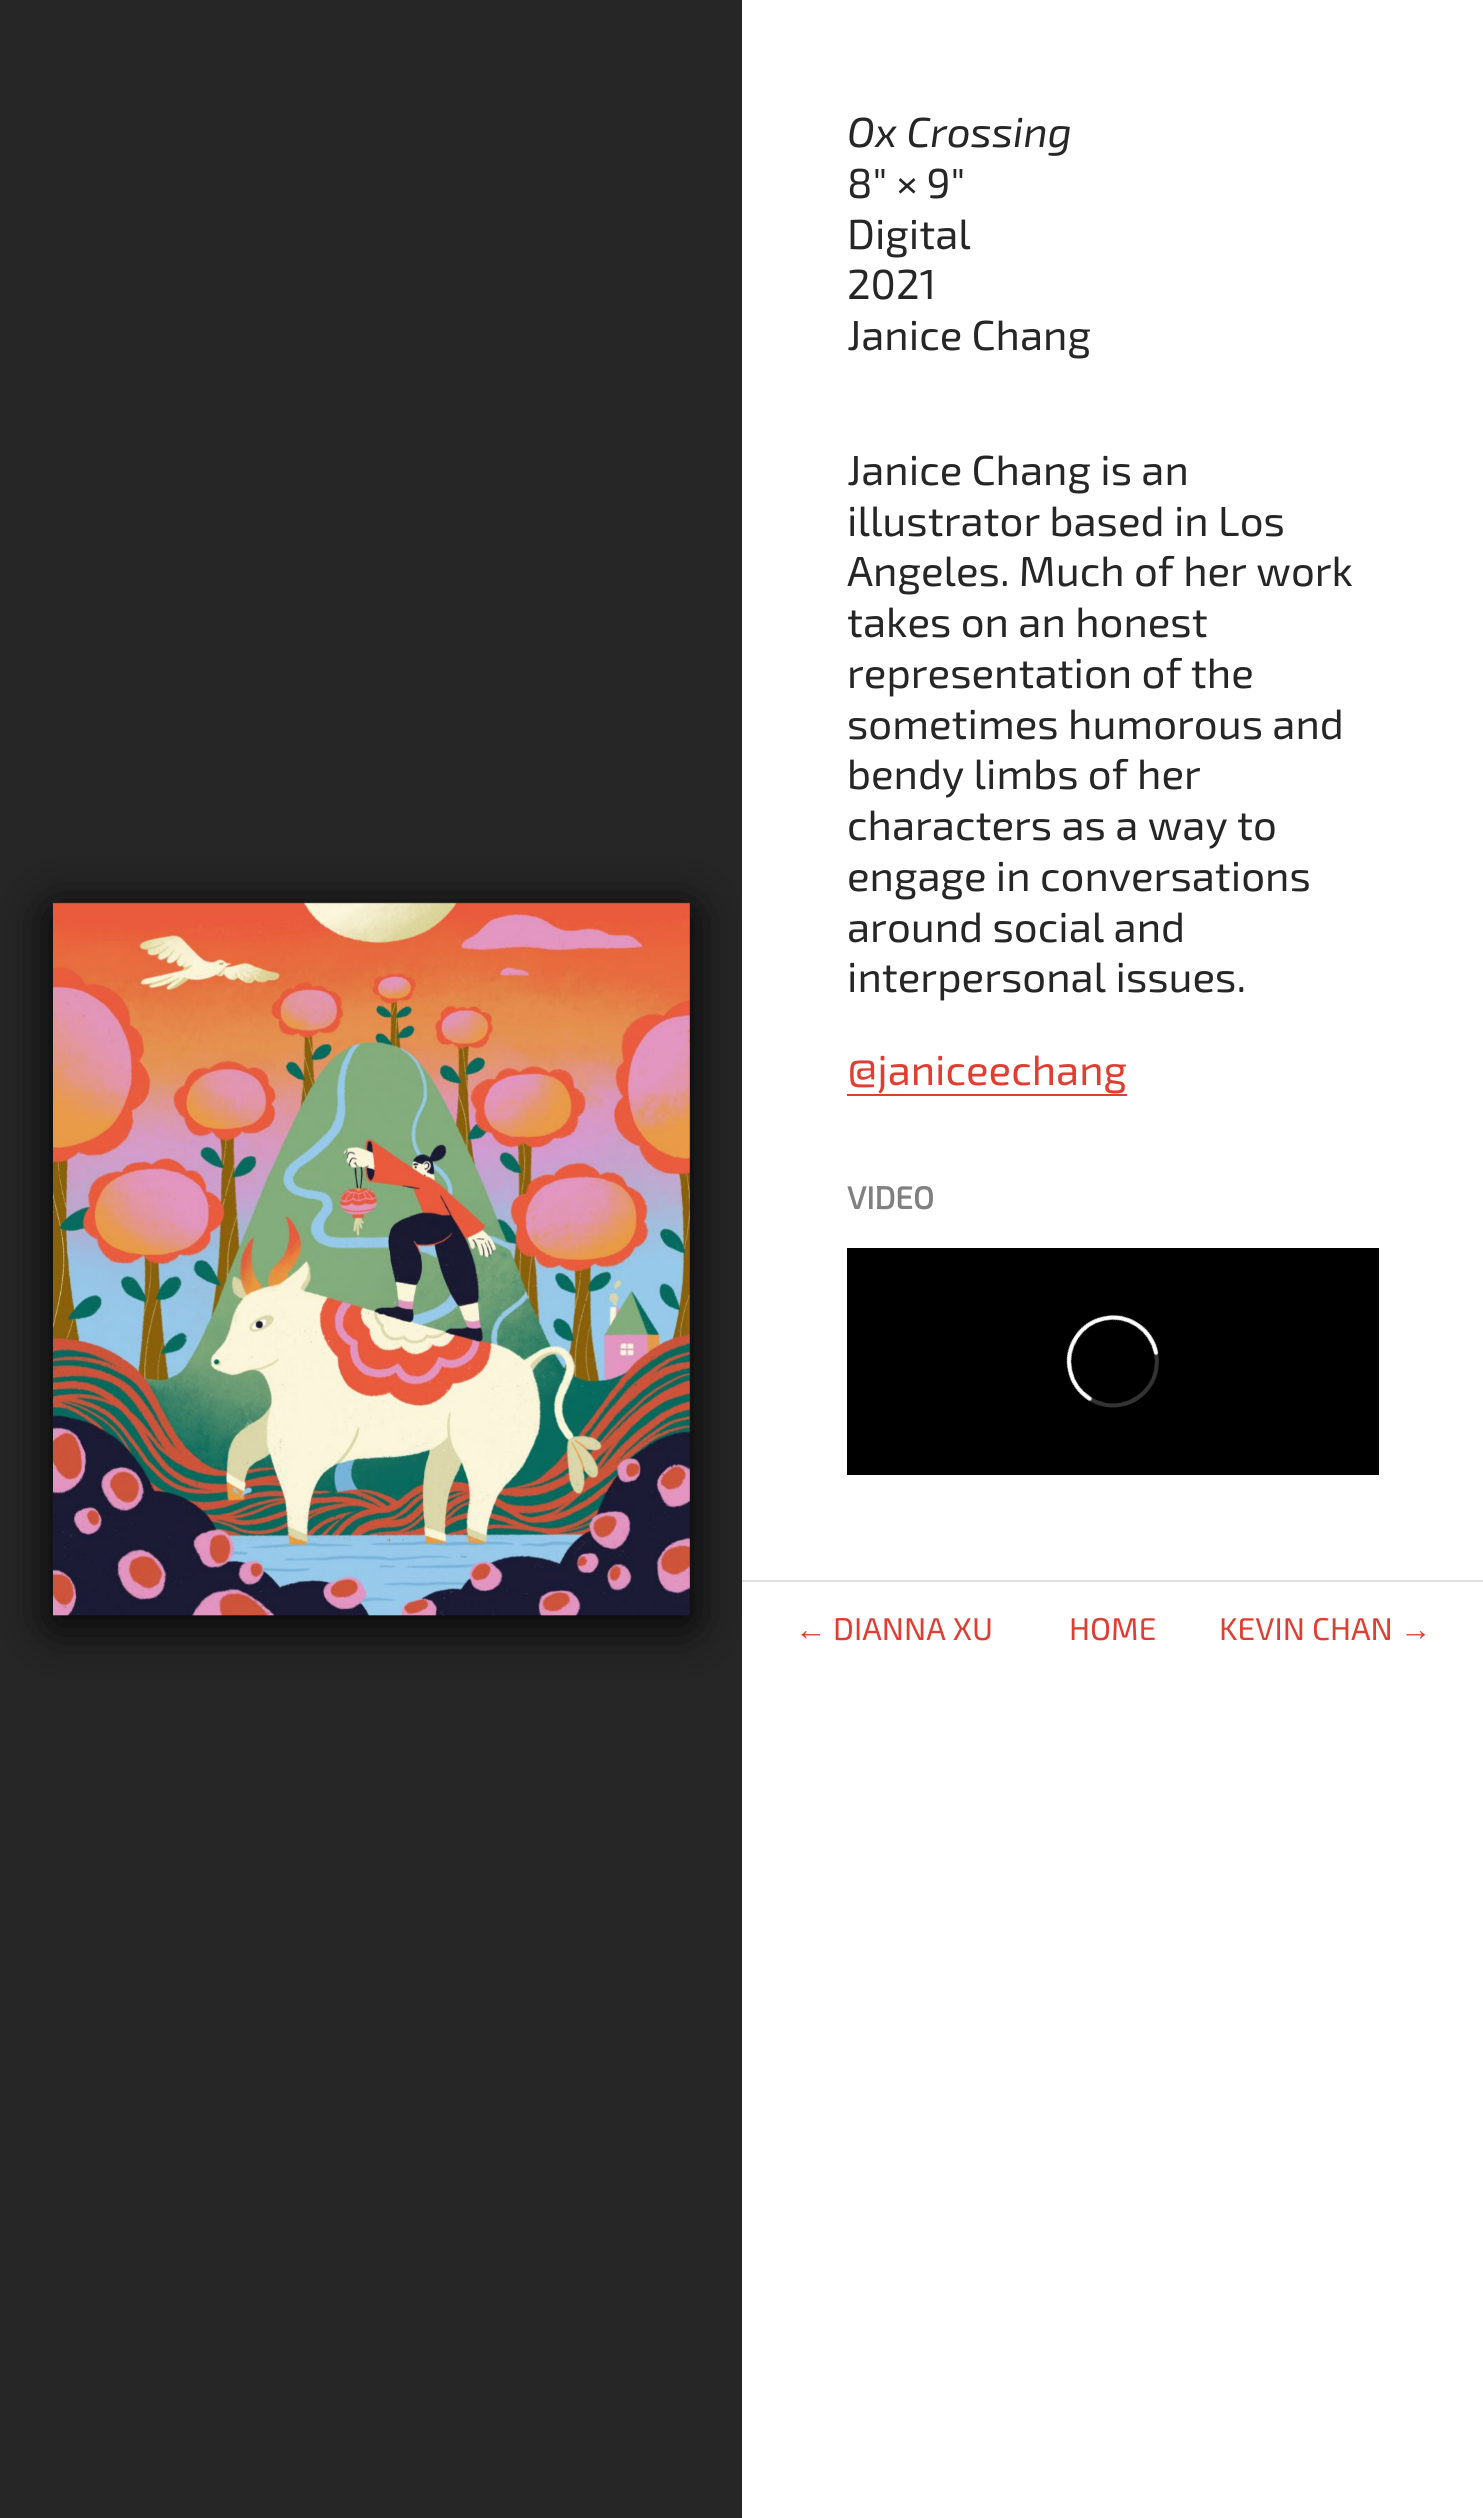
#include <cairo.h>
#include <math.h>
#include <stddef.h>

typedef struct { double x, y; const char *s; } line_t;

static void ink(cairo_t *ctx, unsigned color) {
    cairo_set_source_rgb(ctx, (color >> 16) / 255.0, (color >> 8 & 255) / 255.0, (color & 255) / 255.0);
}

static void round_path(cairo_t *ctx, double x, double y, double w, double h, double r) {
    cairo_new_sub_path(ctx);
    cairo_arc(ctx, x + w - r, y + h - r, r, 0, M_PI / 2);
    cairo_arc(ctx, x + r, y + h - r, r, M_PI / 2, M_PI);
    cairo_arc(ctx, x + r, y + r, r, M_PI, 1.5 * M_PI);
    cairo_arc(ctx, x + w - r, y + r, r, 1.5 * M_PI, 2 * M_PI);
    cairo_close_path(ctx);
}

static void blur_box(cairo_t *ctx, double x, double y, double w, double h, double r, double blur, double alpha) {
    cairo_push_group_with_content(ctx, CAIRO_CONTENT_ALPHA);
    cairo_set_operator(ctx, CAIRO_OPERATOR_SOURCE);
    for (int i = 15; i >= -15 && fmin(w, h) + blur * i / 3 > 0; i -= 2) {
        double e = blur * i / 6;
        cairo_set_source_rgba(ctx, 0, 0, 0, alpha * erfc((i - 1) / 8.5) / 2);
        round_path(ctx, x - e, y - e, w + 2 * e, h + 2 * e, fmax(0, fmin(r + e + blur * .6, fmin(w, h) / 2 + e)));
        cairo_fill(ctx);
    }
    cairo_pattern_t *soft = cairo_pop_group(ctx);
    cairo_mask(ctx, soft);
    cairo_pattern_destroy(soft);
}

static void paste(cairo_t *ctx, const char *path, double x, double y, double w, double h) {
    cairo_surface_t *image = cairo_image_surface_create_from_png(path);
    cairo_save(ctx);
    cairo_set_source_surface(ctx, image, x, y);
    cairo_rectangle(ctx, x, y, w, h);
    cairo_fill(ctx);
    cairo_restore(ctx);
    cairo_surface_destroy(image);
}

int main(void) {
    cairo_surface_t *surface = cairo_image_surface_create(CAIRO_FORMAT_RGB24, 1483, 2518);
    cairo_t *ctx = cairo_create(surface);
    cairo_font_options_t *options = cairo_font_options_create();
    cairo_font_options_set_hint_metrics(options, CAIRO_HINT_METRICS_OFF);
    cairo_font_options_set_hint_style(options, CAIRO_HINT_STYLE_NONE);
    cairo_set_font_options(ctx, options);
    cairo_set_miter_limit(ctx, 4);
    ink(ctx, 0xFFFFFF);
    cairo_paint(ctx);
    ink(ctx, 0x262626);
    cairo_rectangle(ctx, 0, 0, 742, 2518);
    cairo_fill(ctx);
    ink(ctx, 0xE0E0E0);
    cairo_rectangle(ctx, 742, 1580, 741, 2);
    cairo_fill(ctx);
    cairo_save(ctx);
    cairo_rectangle(ctx, 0, 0, 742, 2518);
    cairo_clip(ctx);
    ink(ctx, 0x000000);
    blur_box(ctx, 53, 912, 637, 712, 0, 26, 1);
    cairo_restore(ctx);
    paste(ctx, "media/1.png", 53, 902, 637, 714);
    cairo_select_font_face(ctx, "Exo 2", CAIRO_FONT_SLANT_ITALIC, CAIRO_FONT_WEIGHT_NORMAL);
    cairo_set_font_size(ctx, 42);
    ink(ctx, 0x262626);
    cairo_move_to(ctx, 847, 147);
    cairo_show_text(ctx, "Ox Crossing");
    cairo_select_font_face(ctx, "Exo 2", CAIRO_FONT_SLANT_NORMAL, CAIRO_FONT_WEIGHT_NORMAL);
    {
        static const line_t items[] = {
            {847, 198, "8\" × 9\""},
            {847, 249, "Digital"},
            {847, 299, "2021"},
            {847, 350, "Janice Chang"},
            {847, 485, "Janice Chang is an"},
            {847, 536, "illustrator based in Los"},
            {847, 586, "Angeles. Much of her work"},
            {847, 637, "takes on an honest"},
            {847, 688, "representation of the"},
            {847, 739, "sometimes humorous and"},
            {847, 789, "bendy limbs of her"},
            {847, 840, "characters as a way to"},
            {847, 891, "engage in conversations"},
            {847, 942, "around social and"},
            {847, 992, "interpersonal issues."},
        };
        for (size_t i = 0; i < sizeof items / sizeof *items; i++) {
            cairo_move_to(ctx, items[i].x, items[i].y);
            cairo_show_text(ctx, items[i].s);
        }
    }
    ink(ctx, 0xE13E32);
    cairo_move_to(ctx, 847, 1085);
    cairo_show_text(ctx, "@janiceechang");
    cairo_rectangle(ctx, 847, 1094, 280, 2);
    cairo_fill(ctx);
    cairo_select_font_face(ctx, "Exo 2", CAIRO_FONT_SLANT_NORMAL, CAIRO_FONT_WEIGHT_BOLD);
    cairo_set_font_size(ctx, 31.5);
    ink(ctx, 0x808080);
    cairo_move_to(ctx, 847, 1209);
    cairo_show_text(ctx, "VIDEO");
    paste(ctx, "media/2.png", 847, 1248, 532, 227);
    cairo_select_font_face(ctx, "Liberation Sans", CAIRO_FONT_SLANT_NORMAL, CAIRO_FONT_WEIGHT_NORMAL);
    ink(ctx, 0xE13E32);
    cairo_move_to(ctx, 795, 1640);
    cairo_show_text(ctx, "←");
    cairo_select_font_face(ctx, "Exo 2", CAIRO_FONT_SLANT_NORMAL, CAIRO_FONT_WEIGHT_NORMAL);
    {
        static const line_t items[] = {
            {833, 1640, "DIANNA XU"},
            {1069, 1640, "HOME"},
            {1219, 1640, "KEVIN CHAN"},
        };
        for (size_t i = 0; i < sizeof items / sizeof *items; i++) {
            cairo_move_to(ctx, items[i].x, items[i].y);
            cairo_show_text(ctx, items[i].s);
        }
    }
    cairo_select_font_face(ctx, "Liberation Sans", CAIRO_FONT_SLANT_NORMAL, CAIRO_FONT_WEIGHT_NORMAL);
    cairo_move_to(ctx, 1400, 1640);
    cairo_show_text(ctx, "→");
    cairo_surface_write_to_png(surface, "image.png");
    cairo_font_options_destroy(options);
    cairo_destroy(ctx);
    cairo_surface_destroy(surface);
    return 0;
}
